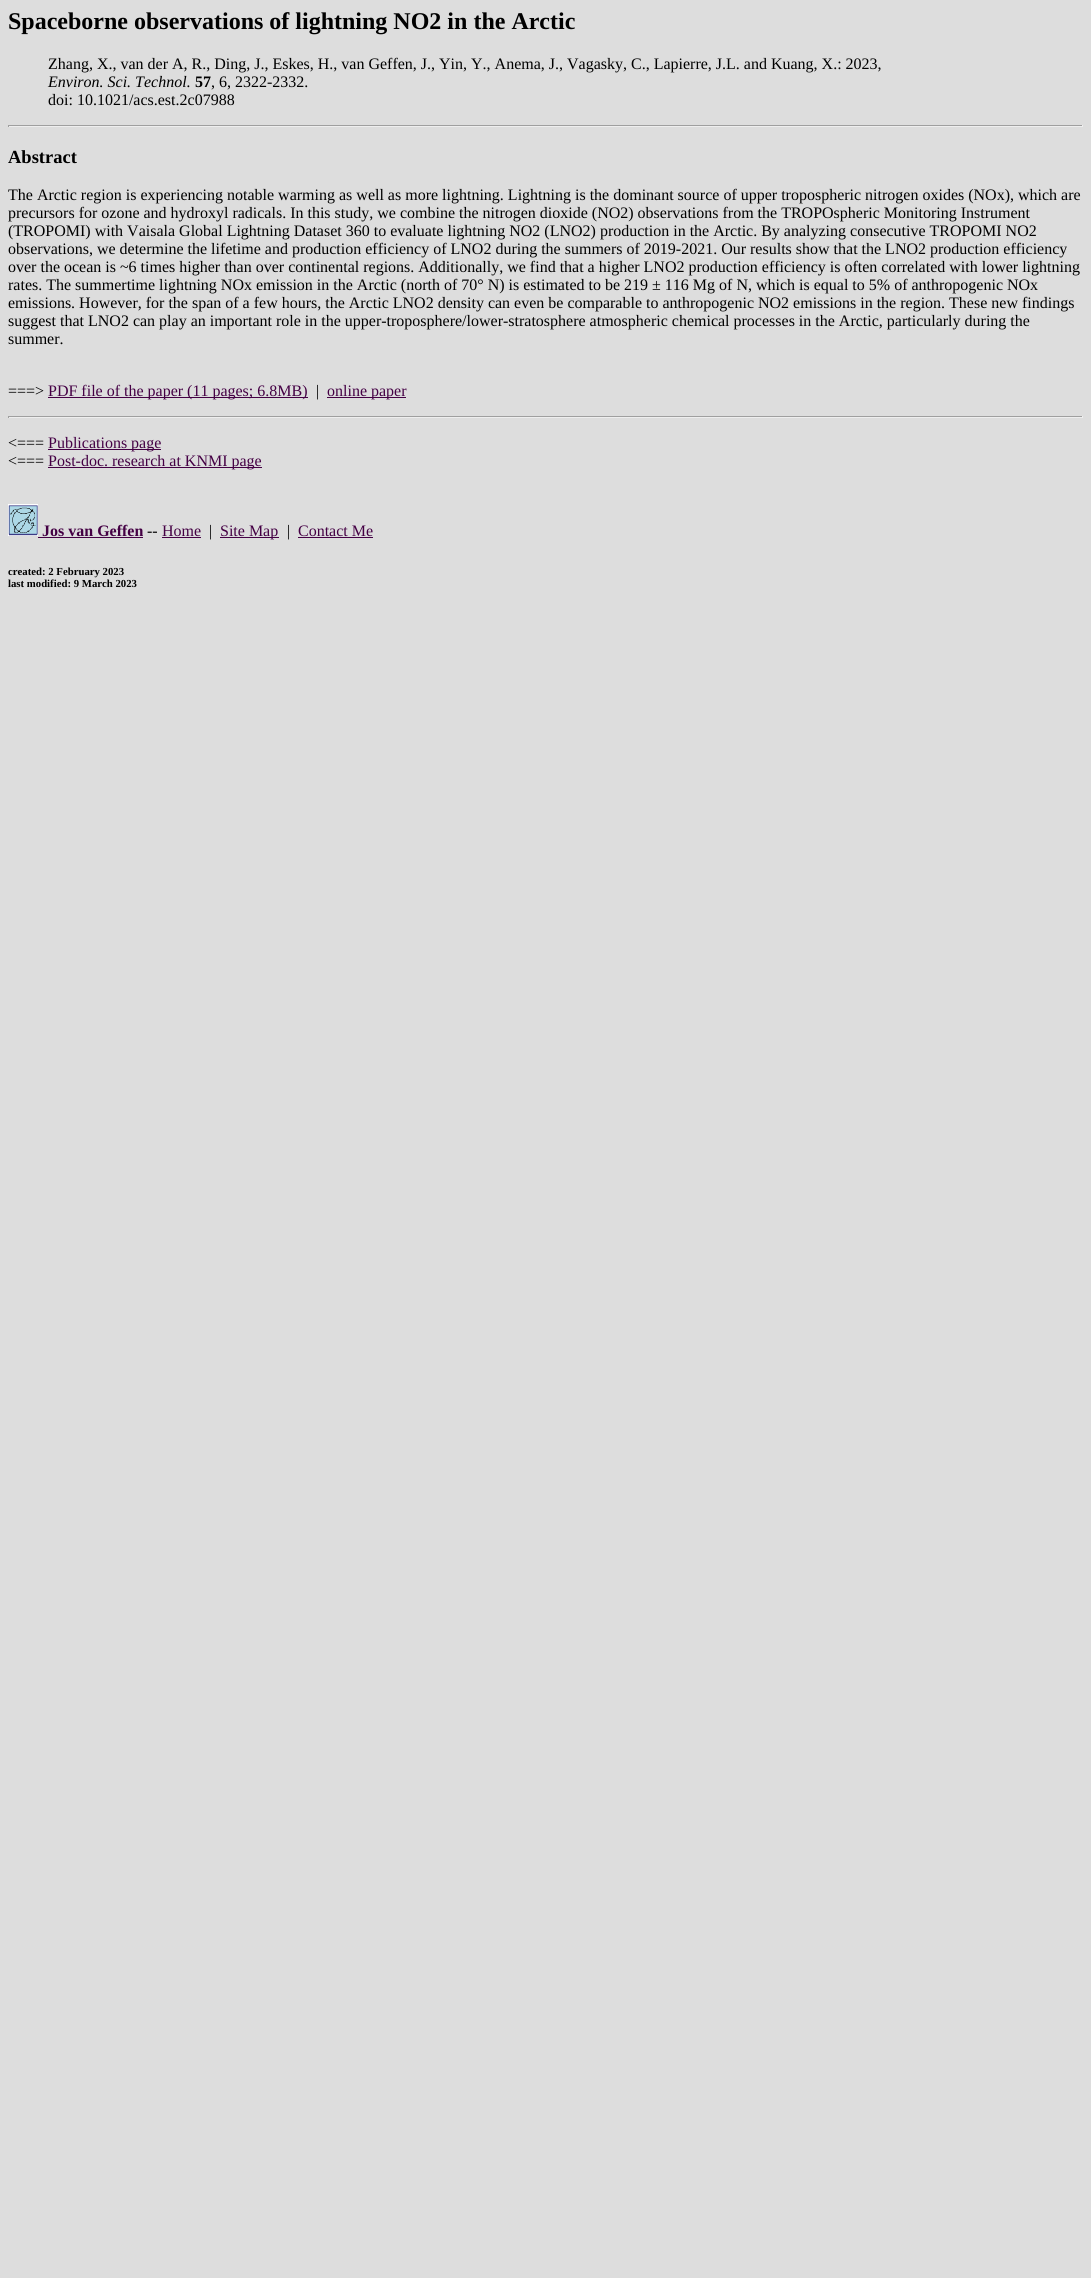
#include <cairo.h>
#include <math.h>
#include <stddef.h>

typedef struct { double x, y; const char *s; } line_t;
typedef struct { double x, y, w, h; unsigned color; } box_t;

static void ink(cairo_t *ctx, unsigned color) {
    cairo_set_source_rgb(ctx, (color >> 16) / 255.0, (color >> 8 & 255) / 255.0, (color & 255) / 255.0);
}

static void paste(cairo_t *ctx, const char *path, double x, double y, double w, double h) {
    cairo_surface_t *image = cairo_image_surface_create_from_png(path);
    cairo_save(ctx);
    cairo_set_source_surface(ctx, image, x, y);
    cairo_rectangle(ctx, x, y, w, h);
    cairo_fill(ctx);
    cairo_restore(ctx);
    cairo_surface_destroy(image);
}

int main(void) {
    cairo_surface_t *surface = cairo_image_surface_create(CAIRO_FORMAT_RGB24, 1091, 2278);
    cairo_t *ctx = cairo_create(surface);
    cairo_font_options_t *options = cairo_font_options_create();
    cairo_font_options_set_hint_metrics(options, CAIRO_HINT_METRICS_OFF);
    cairo_font_options_set_hint_style(options, CAIRO_HINT_STYLE_NONE);
    cairo_set_font_options(ctx, options);
    cairo_set_miter_limit(ctx, 4);
    ink(ctx, 0xDDDDDD);
    cairo_paint(ctx);
    cairo_select_font_face(ctx, "Liberation Serif", CAIRO_FONT_SLANT_NORMAL, CAIRO_FONT_WEIGHT_BOLD);
    cairo_set_font_size(ctx, 24);
    ink(ctx, 0x000000);
    cairo_move_to(ctx, 8, 29);
    cairo_show_text(ctx, "Spaceborne observations of lightning NO2 in the Arctic");
    cairo_select_font_face(ctx, "Liberation Serif", CAIRO_FONT_SLANT_NORMAL, CAIRO_FONT_WEIGHT_NORMAL);
    cairo_set_font_size(ctx, 16);
    cairo_move_to(ctx, 48, 69);
    cairo_show_text(ctx, "Zhang, X., van der A, R., Ding, J., Eskes, H., van Geffen, J., Yin, Y., Anema, J., Vagasky, C., Lapierre, J.L. and Kuang, X.: 2023,");
    cairo_select_font_face(ctx, "Liberation Serif", CAIRO_FONT_SLANT_ITALIC, CAIRO_FONT_WEIGHT_NORMAL);
    cairo_move_to(ctx, 48, 87);
    cairo_show_text(ctx, "Environ. Sci. Technol.");
    cairo_select_font_face(ctx, "Liberation Serif", CAIRO_FONT_SLANT_NORMAL, CAIRO_FONT_WEIGHT_BOLD);
    cairo_move_to(ctx, 195, 87);
    cairo_show_text(ctx, "57");
    cairo_select_font_face(ctx, "Liberation Serif", CAIRO_FONT_SLANT_NORMAL, CAIRO_FONT_WEIGHT_NORMAL);
    cairo_move_to(ctx, 211, 87);
    cairo_show_text(ctx, ", 6, 2322-2332.");
    cairo_move_to(ctx, 48, 105);
    cairo_show_text(ctx, "doi: 10.1021/acs.est.2c07988");
    {
        static const box_t items[] = {
            {8, 125, 1075, 1, 0x9F9F9F},
            {1082, 125, 1, 2, 0xEEEEEE},
            {8, 126, 1075, 1, 0xEEEEEE},
            {8, 125, 1, 2, 0x9F9F9F},
        };
        for (size_t i = 0; i < sizeof items / sizeof *items; i++) {
            ink(ctx, items[i].color);
            cairo_rectangle(ctx, items[i].x, items[i].y, items[i].w, items[i].h);
            cairo_fill(ctx);
        }
    }
    cairo_select_font_face(ctx, "Liberation Serif", CAIRO_FONT_SLANT_NORMAL, CAIRO_FONT_WEIGHT_BOLD);
    cairo_set_font_size(ctx, 18.5);
    ink(ctx, 0x000000);
    cairo_move_to(ctx, 8, 163);
    cairo_show_text(ctx, "Abstract");
    cairo_select_font_face(ctx, "Liberation Serif", CAIRO_FONT_SLANT_NORMAL, CAIRO_FONT_WEIGHT_NORMAL);
    cairo_set_font_size(ctx, 16);
    {
        static const line_t items[] = {
            {8, 200, "The Arctic region is experiencing notable warming as well as more lightning. Lightning is the dominant source of upper tropospheric nitrogen oxides (NOx), which are"},
            {8, 218, "precursors for ozone and hydroxyl radicals. In this study, we combine the nitrogen dioxide (NO2) observations from the TROPOspheric Monitoring Instrument"},
            {8, 236, "(TROPOMI) with Vaisala Global Lightning Dataset 360 to evaluate lightning NO2 (LNO2) production in the Arctic. By analyzing consecutive TROPOMI NO2"},
            {8, 254, "observations, we determine the lifetime and production efficiency of LNO2 during the summers of 2019-2021. Our results show that the LNO2 production efficiency"},
            {8, 272, "over the ocean is ~6 times higher than over continental regions. Additionally, we find that a higher LNO2 production efficiency is often correlated with lower lightning"},
            {8, 290, "rates. The summertime lightning NOx emission in the Arctic (north of 70° N) is estimated to be 219 ± 116 Mg of N, which is equal to 5% of anthropogenic NOx"},
            {8, 308, "emissions. However, for the span of a few hours, the Arctic LNO2 density can even be comparable to anthropogenic NO2 emissions in the region. These new findings"},
            {8, 326, "suggest that LNO2 can play an important role in the upper-troposphere/lower-stratosphere atmospheric chemical processes in the Arctic, particularly during the"},
            {8, 344, "summer."},
            {8, 396, "===>"},
        };
        for (size_t i = 0; i < sizeof items / sizeof *items; i++) {
            cairo_move_to(ctx, items[i].x, items[i].y);
            cairo_show_text(ctx, items[i].s);
        }
    }
    ink(ctx, 0x440044);
    cairo_rectangle(ctx, 48, 397, 260, 1);
    cairo_fill(ctx);
    cairo_move_to(ctx, 48, 396);
    cairo_show_text(ctx, "PDF file of the paper (11 pages; 6.8MB)");
    ink(ctx, 0x000000);
    cairo_move_to(ctx, 316, 396);
    cairo_show_text(ctx, "|");
    ink(ctx, 0x440044);
    cairo_rectangle(ctx, 327, 397, 79, 1);
    cairo_fill(ctx);
    cairo_move_to(ctx, 327, 396);
    cairo_show_text(ctx, "online paper");
    {
        static const box_t items[] = {
            {8, 416, 1075, 1, 0x9F9F9F},
            {1082, 416, 1, 2, 0xEEEEEE},
            {8, 417, 1075, 1, 0xEEEEEE},
            {8, 416, 1, 2, 0x9F9F9F},
        };
        for (size_t i = 0; i < sizeof items / sizeof *items; i++) {
            ink(ctx, items[i].color);
            cairo_rectangle(ctx, items[i].x, items[i].y, items[i].w, items[i].h);
            cairo_fill(ctx);
        }
    }
    ink(ctx, 0x000000);
    cairo_move_to(ctx, 8, 448);
    cairo_show_text(ctx, "<===");
    ink(ctx, 0x440044);
    cairo_rectangle(ctx, 48, 449, 113, 1);
    cairo_fill(ctx);
    cairo_move_to(ctx, 48, 448);
    cairo_show_text(ctx, "Publications page");
    ink(ctx, 0x000000);
    cairo_move_to(ctx, 8, 466);
    cairo_show_text(ctx, "<===");
    ink(ctx, 0x440044);
    cairo_rectangle(ctx, 48, 467, 214, 1);
    cairo_fill(ctx);
    cairo_move_to(ctx, 48, 466);
    cairo_show_text(ctx, "Post-doc. research at KNMI page");
    paste(ctx, "media/1.png", 8, 504, 30, 32);
    cairo_select_font_face(ctx, "Liberation Serif", CAIRO_FONT_SLANT_NORMAL, CAIRO_FONT_WEIGHT_BOLD);
    cairo_move_to(ctx, 42, 536);
    cairo_show_text(ctx, "Jos van Geffen");
    cairo_rectangle(ctx, 38, 537, 105, 1);
    cairo_fill(ctx);
    cairo_select_font_face(ctx, "Liberation Serif", CAIRO_FONT_SLANT_NORMAL, CAIRO_FONT_WEIGHT_NORMAL);
    ink(ctx, 0x000000);
    cairo_move_to(ctx, 147, 536);
    cairo_show_text(ctx, "--");
    ink(ctx, 0x440044);
    cairo_move_to(ctx, 162, 536);
    cairo_show_text(ctx, "Home");
    cairo_rectangle(ctx, 162, 537, 39, 1);
    cairo_fill(ctx);
    ink(ctx, 0x000000);
    cairo_move_to(ctx, 209, 536);
    cairo_show_text(ctx, "|");
    ink(ctx, 0x440044);
    cairo_rectangle(ctx, 220, 537, 59, 1);
    cairo_fill(ctx);
    cairo_move_to(ctx, 220, 536);
    cairo_show_text(ctx, "Site Map");
    ink(ctx, 0x000000);
    cairo_move_to(ctx, 287, 536);
    cairo_show_text(ctx, "|");
    ink(ctx, 0x440044);
    cairo_move_to(ctx, 298, 536);
    cairo_show_text(ctx, "Contact Me");
    cairo_rectangle(ctx, 298, 537, 75, 1);
    cairo_fill(ctx);
    cairo_select_font_face(ctx, "Liberation Serif", CAIRO_FONT_SLANT_NORMAL, CAIRO_FONT_WEIGHT_BOLD);
    cairo_set_font_size(ctx, 10.75);
    ink(ctx, 0x000000);
    cairo_move_to(ctx, 8, 575);
    cairo_show_text(ctx, "created: 2 February 2023");
    cairo_move_to(ctx, 8, 587);
    cairo_show_text(ctx, "last modified: 9 March 2023");
    cairo_surface_write_to_png(surface, "image.png");
    cairo_font_options_destroy(options);
    cairo_destroy(ctx);
    cairo_surface_destroy(surface);
    return 0;
}
